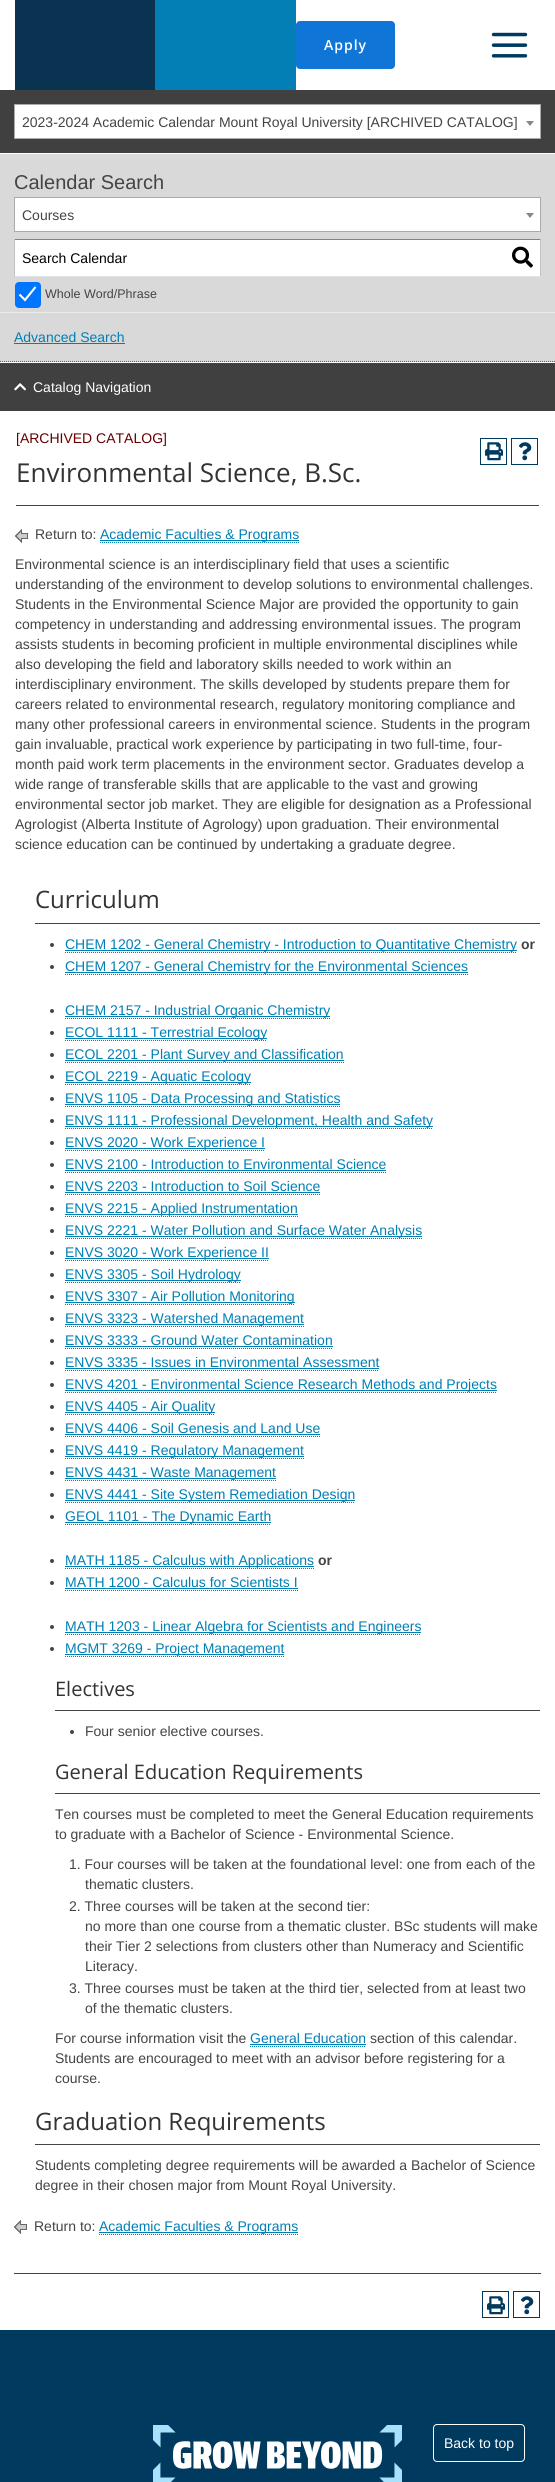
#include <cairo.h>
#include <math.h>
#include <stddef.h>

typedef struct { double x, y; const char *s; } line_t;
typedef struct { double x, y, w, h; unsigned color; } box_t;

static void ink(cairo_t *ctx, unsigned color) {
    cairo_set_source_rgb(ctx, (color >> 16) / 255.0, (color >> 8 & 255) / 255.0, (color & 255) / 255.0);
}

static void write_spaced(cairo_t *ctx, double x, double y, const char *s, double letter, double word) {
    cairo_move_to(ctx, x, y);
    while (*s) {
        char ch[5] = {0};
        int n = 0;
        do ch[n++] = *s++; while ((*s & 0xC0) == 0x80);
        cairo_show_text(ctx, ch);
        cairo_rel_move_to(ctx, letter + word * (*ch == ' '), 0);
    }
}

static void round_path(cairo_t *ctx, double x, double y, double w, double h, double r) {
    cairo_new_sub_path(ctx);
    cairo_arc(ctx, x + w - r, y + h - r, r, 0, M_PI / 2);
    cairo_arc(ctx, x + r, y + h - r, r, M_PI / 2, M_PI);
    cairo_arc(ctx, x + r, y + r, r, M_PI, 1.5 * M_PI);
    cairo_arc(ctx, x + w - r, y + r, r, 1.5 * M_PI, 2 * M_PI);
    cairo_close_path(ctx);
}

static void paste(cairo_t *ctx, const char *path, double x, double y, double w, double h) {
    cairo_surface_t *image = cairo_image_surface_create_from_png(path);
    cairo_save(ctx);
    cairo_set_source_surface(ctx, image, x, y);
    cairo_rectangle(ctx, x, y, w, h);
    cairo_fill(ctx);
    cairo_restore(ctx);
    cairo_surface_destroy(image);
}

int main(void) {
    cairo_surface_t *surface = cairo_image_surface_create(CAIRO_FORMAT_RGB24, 555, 2482);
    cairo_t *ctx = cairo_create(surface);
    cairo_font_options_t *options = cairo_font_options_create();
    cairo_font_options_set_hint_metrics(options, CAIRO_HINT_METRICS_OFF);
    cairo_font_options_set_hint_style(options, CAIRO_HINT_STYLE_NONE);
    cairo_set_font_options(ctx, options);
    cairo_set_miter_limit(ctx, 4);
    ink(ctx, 0xFFFFFF);
    cairo_paint(ctx);
    cairo_save(ctx);
    cairo_rectangle(ctx, 15, 0, 281, 90);
    cairo_clip(ctx);
    ink(ctx, 0x093351);
    cairo_new_path(ctx);
    cairo_move_to(ctx, 155, 269);
    cairo_line_to(ctx, 15, 130);
    cairo_line_to(ctx, 15, -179);
    cairo_line_to(ctx, 155, -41);
    cairo_close_path(ctx);
    cairo_fill(ctx);
    ink(ctx, 0x047FB6);
    cairo_new_path(ctx);
    cairo_move_to(ctx, 155, 269);
    cairo_line_to(ctx, 296, 130);
    cairo_line_to(ctx, 296, -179);
    cairo_line_to(ctx, 155, -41);
    cairo_close_path(ctx);
    cairo_fill(ctx);
    cairo_restore(ctx);
    ink(ctx, 0x0F76D7);
    round_path(ctx, 296, 21, 99, 48, 4);
    cairo_fill(ctx);
    cairo_select_font_face(ctx, "Open Sans SemiBold", CAIRO_FONT_SLANT_NORMAL, CAIRO_FONT_WEIGHT_NORMAL);
    cairo_set_font_size(ctx, 14);
    ink(ctx, 0xFFFFFF);
    write_spaced(ctx, 324, 50, "Apply", 1, 0);
    paste(ctx, "media/1.png", 491, 32, 37, 26);
    ink(ctx, 0x404040);
    cairo_rectangle(ctx, 0, 90, 555, 63);
    cairo_fill(ctx);
    ink(ctx, 0xFFFFFF);
    cairo_rectangle(ctx, 14.5, 104.5, 526, 34);
    cairo_fill_preserve(ctx);
    ink(ctx, 0xAAAAAA);
    cairo_set_line_width(ctx, 1);
    cairo_stroke(ctx);
    cairo_select_font_face(ctx, "Liberation Sans", CAIRO_FONT_SLANT_NORMAL, CAIRO_FONT_WEIGHT_NORMAL);
    ink(ctx, 0x444444);
    cairo_move_to(ctx, 22, 127);
    cairo_show_text(ctx, "2023-2024 Academic Calendar Mount Royal University [ARCHIVED CATALOG]");
    ink(ctx, 0x888888);
    cairo_new_path(ctx);
    cairo_move_to(ctx, 526, 121);
    cairo_line_to(ctx, 534, 121);
    cairo_line_to(ctx, 530, 126);
    cairo_close_path(ctx);
    cairo_fill(ctx);
    ink(ctx, 0xD9D9D9);
    cairo_rectangle(ctx, 0, 154, 555, 208);
    cairo_fill(ctx);
    cairo_set_font_size(ctx, 20);
    ink(ctx, 0x444444);
    cairo_move_to(ctx, 14, 189);
    cairo_show_text(ctx, "Calendar Search");
    ink(ctx, 0xFFFFFF);
    cairo_rectangle(ctx, 14.5, 197.5, 526, 34);
    cairo_fill_preserve(ctx);
    ink(ctx, 0xAAAAAA);
    cairo_stroke(ctx);
    cairo_set_font_size(ctx, 14);
    ink(ctx, 0x444444);
    cairo_move_to(ctx, 22, 220);
    cairo_show_text(ctx, "Courses");
    ink(ctx, 0x888888);
    cairo_new_path(ctx);
    cairo_move_to(ctx, 526, 213);
    cairo_line_to(ctx, 534, 213);
    cairo_line_to(ctx, 530, 218);
    cairo_close_path(ctx);
    cairo_fill(ctx);
    {
        static const box_t items[] = {
            {15, 240, 525, 36, 0xFFFFFF},
            {14, 239, 527, 1, 0x848484},
            {540, 239, 1, 38, 0xC1C1C1},
            {14, 276, 527, 1, 0xE1E1E1},
            {14, 239, 1, 38, 0xC1C1C1},
        };
        for (size_t i = 0; i < sizeof items / sizeof *items; i++) {
            ink(ctx, items[i].color);
            cairo_rectangle(ctx, items[i].x, items[i].y, items[i].w, items[i].h);
            cairo_fill(ctx);
        }
    }
    ink(ctx, 0x000000);
    cairo_move_to(ctx, 22, 263);
    cairo_show_text(ctx, "Search Calendar");
    paste(ctx, "media/2.png", 512, 246, 21, 22);
    ink(ctx, 0x0075FF);
    round_path(ctx, 15, 282, 26, 26, 4);
    cairo_fill(ctx);
    cairo_new_path(ctx);
    cairo_move_to(ctx, 19.5, 294.5);
    cairo_line_to(ctx, 25, 300);
    cairo_line_to(ctx, 35.5, 287);
    ink(ctx, 0xFFFFFF);
    cairo_set_line_width(ctx, 2.1);
    cairo_stroke(ctx);
    cairo_set_font_size(ctx, 12.5);
    ink(ctx, 0x444444);
    cairo_move_to(ctx, 45, 298);
    cairo_show_text(ctx, "Whole Word/Phrase");
    ink(ctx, 0xECECEC);
    cairo_rectangle(ctx, 0, 312, 555, 1);
    cairo_fill(ctx);
    cairo_new_path(ctx);
    cairo_move_to(ctx, 0, 361.5);
    cairo_line_to(ctx, 555, 361.5);
    ink(ctx, 0x007FB5);
    cairo_set_line_width(ctx, 1);
    cairo_set_dash(ctx, (double[]){1, 1}, 2, 0);
    cairo_stroke(ctx);
    cairo_set_font_size(ctx, 14);
    cairo_move_to(ctx, 14, 342);
    cairo_show_text(ctx, "Advanced Search");
    cairo_rectangle(ctx, 14, 343, 111, 1);
    cairo_fill(ctx);
    ink(ctx, 0x404040);
    cairo_rectangle(ctx, 0, 363, 555, 48);
    cairo_fill(ctx);
    paste(ctx, "media/3.png", 14, 383, 12, 8);
    ink(ctx, 0xFFFFFF);
    cairo_move_to(ctx, 33, 392);
    cairo_show_text(ctx, "Catalog Navigation");
    ink(ctx, 0x660000);
    cairo_move_to(ctx, 16, 443);
    cairo_show_text(ctx, "[ARCHIVED CATALOG]");
    cairo_rectangle(ctx, 480.5, 438.5, 26, 26);
    ink(ctx, 0x003A5F);
    cairo_set_dash(ctx, NULL, 0, 0);
    cairo_stroke(ctx);
    paste(ctx, "media/4.png", 485, 442, 18, 19);
    cairo_rectangle(ctx, 511.5, 438.5, 26, 26);
    cairo_stroke(ctx);
    paste(ctx, "media/5.png", 519, 442, 13, 19);
    cairo_select_font_face(ctx, "Open Sans", CAIRO_FONT_SLANT_NORMAL, CAIRO_FONT_WEIGHT_NORMAL);
    cairo_set_font_size(ctx, 26);
    ink(ctx, 0x333333);
    cairo_move_to(ctx, 16, 482);
    cairo_show_text(ctx, "Environmental Science, B.Sc.");
    ink(ctx, 0x444444);
    cairo_rectangle(ctx, 16, 505, 523, 1);
    cairo_fill(ctx);
    paste(ctx, "media/6.png", 15, 529, 13, 14);
    cairo_select_font_face(ctx, "Liberation Sans", CAIRO_FONT_SLANT_NORMAL, CAIRO_FONT_WEIGHT_NORMAL);
    cairo_set_font_size(ctx, 14);
    cairo_move_to(ctx, 35, 539);
    cairo_show_text(ctx, "Return to:");
    ink(ctx, 0x007FB5);
    cairo_rectangle(ctx, 100, 540, 199, 1);
    cairo_fill(ctx);
    cairo_move_to(ctx, 100, 539);
    cairo_show_text(ctx, "Academic Faculties & Programs");
    cairo_new_path(ctx);
    cairo_move_to(ctx, 100, 542.5);
    cairo_line_to(ctx, 299, 542.5);
    cairo_set_dash(ctx, (double[]){1, 1}, 2, 0);
    cairo_stroke(ctx);
    ink(ctx, 0x444444);
    {
        static const line_t items[] = {
            {15, 569, "Environmental science is an interdisciplinary field that uses a scientific"},
            {15, 589, "understanding of the environment to develop solutions to environmental challenges."},
            {15, 609, "Students in the Environmental Science Major are provided the opportunity to gain"},
            {15, 629, "competency in understanding and addressing environmental issues. The program"},
            {15, 649, "assists students in becoming proficient in multiple environmental disciplines while"},
            {15, 669, "also developing the field and laboratory skills needed to work within an"},
            {15, 689, "interdisciplinary environment. The skills developed by students prepare them for"},
            {15, 709, "careers related to environmental research, regulatory monitoring compliance and"},
            {15, 729, "many other professional careers in environmental science. Students in the program"},
            {15, 749, "gain invaluable, practical work experience by participating in two full-time, four-"},
            {15, 769, "month paid work term placements in the environment sector. Graduates develop a"},
            {15, 789, "wide range of transferable skills that are applicable to the vast and growing"},
            {15, 809, "environmental sector job market. They are eligible for designation as a Professional"},
            {15, 829, "Agrologist (Alberta Institute of Agrology) upon graduation. Their environmental"},
            {15, 849, "science education can be continued by undertaking a graduate degree."},
        };
        for (size_t i = 0; i < sizeof items / sizeof *items; i++) {
            cairo_move_to(ctx, items[i].x, items[i].y);
            cairo_show_text(ctx, items[i].s);
        }
    }
    cairo_select_font_face(ctx, "Open Sans", CAIRO_FONT_SLANT_NORMAL, CAIRO_FONT_WEIGHT_NORMAL);
    cairo_set_font_size(ctx, 24);
    ink(ctx, 0x333333);
    cairo_move_to(ctx, 35, 908);
    cairo_show_text(ctx, "Curriculum");
    ink(ctx, 0x444444);
    cairo_rectangle(ctx, 35, 923, 505, 1);
    cairo_fill(ctx);
    cairo_arc(ctx, 52, 945, 2, 0, 2 * M_PI);
    cairo_fill(ctx);
    ink(ctx, 0x007FB5);
    cairo_rectangle(ctx, 65, 950, 452, 1);
    cairo_fill(ctx);
    cairo_select_font_face(ctx, "Liberation Sans", CAIRO_FONT_SLANT_NORMAL, CAIRO_FONT_WEIGHT_NORMAL);
    cairo_set_font_size(ctx, 14);
    cairo_move_to(ctx, 65, 949);
    cairo_show_text(ctx, "CHEM 1202 - General Chemistry - Introduction to Quantitative Chemistry");
    cairo_new_path(ctx);
    cairo_move_to(ctx, 65, 952.5);
    cairo_line_to(ctx, 517, 952.5);
    cairo_stroke(ctx);
    cairo_select_font_face(ctx, "Liberation Sans", CAIRO_FONT_SLANT_NORMAL, CAIRO_FONT_WEIGHT_BOLD);
    ink(ctx, 0x444444);
    cairo_move_to(ctx, 521, 949);
    cairo_show_text(ctx, "or");
    cairo_new_path(ctx);
    cairo_arc(ctx, 52, 967, 2, 0, 2 * M_PI);
    cairo_fill(ctx);
    ink(ctx, 0x007FB5);
    cairo_rectangle(ctx, 65, 972, 403, 1);
    cairo_fill(ctx);
    cairo_select_font_face(ctx, "Liberation Sans", CAIRO_FONT_SLANT_NORMAL, CAIRO_FONT_WEIGHT_NORMAL);
    cairo_move_to(ctx, 65, 971);
    cairo_show_text(ctx, "CHEM 1207 - General Chemistry for the Environmental Sciences");
    cairo_new_path(ctx);
    cairo_move_to(ctx, 65, 974.5);
    cairo_line_to(ctx, 468, 974.5);
    cairo_stroke(ctx);
    ink(ctx, 0x444444);
    cairo_arc(ctx, 52, 1011, 2, 0, 2 * M_PI);
    cairo_fill(ctx);
    ink(ctx, 0x007FB5);
    cairo_rectangle(ctx, 65, 1016, 265, 1);
    cairo_fill(ctx);
    cairo_move_to(ctx, 65, 1015);
    cairo_show_text(ctx, "CHEM 2157 - Industrial Organic Chemistry");
    cairo_new_path(ctx);
    cairo_move_to(ctx, 65, 1018.5);
    cairo_line_to(ctx, 330, 1018.5);
    cairo_stroke(ctx);
    ink(ctx, 0x444444);
    cairo_arc(ctx, 52, 1033, 2, 0, 2 * M_PI);
    cairo_fill(ctx);
    ink(ctx, 0x007FB5);
    cairo_rectangle(ctx, 65, 1038, 202, 1);
    cairo_fill(ctx);
    cairo_move_to(ctx, 65, 1037);
    cairo_show_text(ctx, "ECOL 1111 - Terrestrial Ecology");
    cairo_new_path(ctx);
    cairo_move_to(ctx, 65, 1040.5);
    cairo_line_to(ctx, 267, 1040.5);
    cairo_stroke(ctx);
    ink(ctx, 0x444444);
    cairo_arc(ctx, 52, 1055, 2, 0, 2 * M_PI);
    cairo_fill(ctx);
    ink(ctx, 0x007FB5);
    cairo_rectangle(ctx, 65, 1060, 279, 1);
    cairo_fill(ctx);
    cairo_move_to(ctx, 65, 1059);
    cairo_show_text(ctx, "ECOL 2201 - Plant Survey and Classification");
    cairo_new_path(ctx);
    cairo_move_to(ctx, 65, 1062.5);
    cairo_line_to(ctx, 344, 1062.5);
    cairo_stroke(ctx);
    ink(ctx, 0x444444);
    cairo_arc(ctx, 52, 1077, 2, 0, 2 * M_PI);
    cairo_fill(ctx);
    ink(ctx, 0x007FB5);
    cairo_rectangle(ctx, 65, 1082, 186, 1);
    cairo_fill(ctx);
    cairo_move_to(ctx, 65, 1081);
    cairo_show_text(ctx, "ECOL 2219 - Aquatic Ecology");
    cairo_new_path(ctx);
    cairo_move_to(ctx, 65, 1084.5);
    cairo_line_to(ctx, 251, 1084.5);
    cairo_stroke(ctx);
    ink(ctx, 0x444444);
    cairo_arc(ctx, 52, 1099, 2, 0, 2 * M_PI);
    cairo_fill(ctx);
    ink(ctx, 0x007FB5);
    cairo_rectangle(ctx, 65, 1104, 275, 1);
    cairo_fill(ctx);
    cairo_move_to(ctx, 65, 1103);
    cairo_show_text(ctx, "ENVS 1105 - Data Processing and Statistics");
    cairo_new_path(ctx);
    cairo_move_to(ctx, 65, 1106.5);
    cairo_line_to(ctx, 340, 1106.5);
    cairo_stroke(ctx);
    ink(ctx, 0x444444);
    cairo_arc(ctx, 52, 1121, 2, 0, 2 * M_PI);
    cairo_fill(ctx);
    ink(ctx, 0x007FB5);
    cairo_rectangle(ctx, 65, 1126, 368, 1);
    cairo_fill(ctx);
    cairo_move_to(ctx, 65, 1125);
    cairo_show_text(ctx, "ENVS 1111 - Professional Development, Health and Safety");
    cairo_new_path(ctx);
    cairo_move_to(ctx, 65, 1128.5);
    cairo_line_to(ctx, 433, 1128.5);
    cairo_stroke(ctx);
    ink(ctx, 0x444444);
    cairo_arc(ctx, 52, 1143, 2, 0, 2 * M_PI);
    cairo_fill(ctx);
    ink(ctx, 0x007FB5);
    cairo_rectangle(ctx, 65, 1148, 200, 1);
    cairo_fill(ctx);
    cairo_move_to(ctx, 65, 1147);
    cairo_show_text(ctx, "ENVS 2020 - Work Experience I");
    cairo_new_path(ctx);
    cairo_move_to(ctx, 65, 1150.5);
    cairo_line_to(ctx, 265, 1150.5);
    cairo_stroke(ctx);
    ink(ctx, 0x444444);
    cairo_arc(ctx, 52, 1165, 2, 0, 2 * M_PI);
    cairo_fill(ctx);
    ink(ctx, 0x007FB5);
    cairo_move_to(ctx, 65, 1169);
    cairo_show_text(ctx, "ENVS 2100 - Introduction to Environmental Science");
    cairo_new_path(ctx);
    cairo_move_to(ctx, 65, 1172.5);
    cairo_line_to(ctx, 386, 1172.5);
    cairo_stroke(ctx);
    cairo_rectangle(ctx, 65, 1170, 321, 1);
    cairo_fill(ctx);
    ink(ctx, 0x444444);
    cairo_arc(ctx, 52, 1187, 2, 0, 2 * M_PI);
    cairo_fill(ctx);
    ink(ctx, 0x007FB5);
    cairo_move_to(ctx, 65, 1191);
    cairo_show_text(ctx, "ENVS 2203 - Introduction to Soil Science");
    cairo_new_path(ctx);
    cairo_move_to(ctx, 65, 1194.5);
    cairo_line_to(ctx, 320, 1194.5);
    cairo_stroke(ctx);
    cairo_rectangle(ctx, 65, 1192, 255, 1);
    cairo_fill(ctx);
    ink(ctx, 0x444444);
    cairo_arc(ctx, 52, 1209, 2, 0, 2 * M_PI);
    cairo_fill(ctx);
    ink(ctx, 0x007FB5);
    cairo_rectangle(ctx, 65, 1214, 233, 1);
    cairo_fill(ctx);
    cairo_move_to(ctx, 65, 1213);
    cairo_show_text(ctx, "ENVS 2215 - Applied Instrumentation");
    cairo_new_path(ctx);
    cairo_move_to(ctx, 65, 1216.5);
    cairo_line_to(ctx, 298, 1216.5);
    cairo_stroke(ctx);
    ink(ctx, 0x444444);
    cairo_arc(ctx, 52, 1231, 2, 0, 2 * M_PI);
    cairo_fill(ctx);
    ink(ctx, 0x007FB5);
    cairo_rectangle(ctx, 65, 1236, 357, 1);
    cairo_fill(ctx);
    cairo_move_to(ctx, 65, 1235);
    cairo_show_text(ctx, "ENVS 2221 - Water Pollution and Surface Water Analysis");
    cairo_new_path(ctx);
    cairo_move_to(ctx, 65, 1238.5);
    cairo_line_to(ctx, 422, 1238.5);
    cairo_stroke(ctx);
    ink(ctx, 0x444444);
    cairo_arc(ctx, 52, 1253, 2, 0, 2 * M_PI);
    cairo_fill(ctx);
    ink(ctx, 0x007FB5);
    cairo_rectangle(ctx, 65, 1258, 204, 1);
    cairo_fill(ctx);
    cairo_move_to(ctx, 65, 1257);
    cairo_show_text(ctx, "ENVS 3020 - Work Experience II");
    cairo_new_path(ctx);
    cairo_move_to(ctx, 65, 1260.5);
    cairo_line_to(ctx, 269, 1260.5);
    cairo_stroke(ctx);
    ink(ctx, 0x444444);
    cairo_arc(ctx, 52, 1275, 2, 0, 2 * M_PI);
    cairo_fill(ctx);
    ink(ctx, 0x007FB5);
    cairo_rectangle(ctx, 65, 1280, 176, 1);
    cairo_fill(ctx);
    cairo_move_to(ctx, 65, 1279);
    cairo_show_text(ctx, "ENVS 3305 - Soil Hydrology");
    cairo_new_path(ctx);
    cairo_move_to(ctx, 65, 1282.5);
    cairo_line_to(ctx, 241, 1282.5);
    cairo_stroke(ctx);
    ink(ctx, 0x444444);
    cairo_arc(ctx, 52, 1297, 2, 0, 2 * M_PI);
    cairo_fill(ctx);
    ink(ctx, 0x007FB5);
    cairo_rectangle(ctx, 65, 1302, 230, 1);
    cairo_fill(ctx);
    cairo_move_to(ctx, 65, 1301);
    cairo_show_text(ctx, "ENVS 3307 - Air Pollution Monitoring");
    cairo_new_path(ctx);
    cairo_move_to(ctx, 65, 1304.5);
    cairo_line_to(ctx, 295, 1304.5);
    cairo_stroke(ctx);
    ink(ctx, 0x444444);
    cairo_arc(ctx, 52, 1319, 2, 0, 2 * M_PI);
    cairo_fill(ctx);
    ink(ctx, 0x007FB5);
    cairo_rectangle(ctx, 65, 1324, 239, 1);
    cairo_fill(ctx);
    cairo_move_to(ctx, 65, 1323);
    cairo_show_text(ctx, "ENVS 3323 - Watershed Management");
    cairo_new_path(ctx);
    cairo_move_to(ctx, 65, 1326.5);
    cairo_line_to(ctx, 304, 1326.5);
    cairo_stroke(ctx);
    ink(ctx, 0x444444);
    cairo_arc(ctx, 52, 1341, 2, 0, 2 * M_PI);
    cairo_fill(ctx);
    ink(ctx, 0x007FB5);
    cairo_move_to(ctx, 65, 1345);
    cairo_show_text(ctx, "ENVS 3333 - Ground Water Contamination");
    cairo_new_path(ctx);
    cairo_move_to(ctx, 65, 1348.5);
    cairo_line_to(ctx, 333, 1348.5);
    cairo_stroke(ctx);
    cairo_rectangle(ctx, 65, 1346, 268, 1);
    cairo_fill(ctx);
    ink(ctx, 0x444444);
    cairo_arc(ctx, 52, 1363, 2, 0, 2 * M_PI);
    cairo_fill(ctx);
    ink(ctx, 0x007FB5);
    cairo_move_to(ctx, 65, 1367);
    cairo_show_text(ctx, "ENVS 3335 - Issues in Environmental Assessment");
    cairo_new_path(ctx);
    cairo_move_to(ctx, 65, 1370.5);
    cairo_line_to(ctx, 379, 1370.5);
    cairo_stroke(ctx);
    cairo_rectangle(ctx, 65, 1368, 314, 1);
    cairo_fill(ctx);
    ink(ctx, 0x444444);
    cairo_arc(ctx, 52, 1385, 2, 0, 2 * M_PI);
    cairo_fill(ctx);
    ink(ctx, 0x007FB5);
    cairo_rectangle(ctx, 65, 1390, 432, 1);
    cairo_fill(ctx);
    cairo_move_to(ctx, 65, 1389);
    cairo_show_text(ctx, "ENVS 4201 - Environmental Science Research Methods and Projects");
    cairo_new_path(ctx);
    cairo_move_to(ctx, 65, 1392.5);
    cairo_line_to(ctx, 497, 1392.5);
    cairo_stroke(ctx);
    ink(ctx, 0x444444);
    cairo_arc(ctx, 52, 1407, 2, 0, 2 * M_PI);
    cairo_fill(ctx);
    ink(ctx, 0x007FB5);
    cairo_rectangle(ctx, 65, 1412, 150, 1);
    cairo_fill(ctx);
    cairo_move_to(ctx, 65, 1411);
    cairo_show_text(ctx, "ENVS 4405 - Air Quality");
    cairo_new_path(ctx);
    cairo_move_to(ctx, 65, 1414.5);
    cairo_line_to(ctx, 215, 1414.5);
    cairo_stroke(ctx);
    ink(ctx, 0x444444);
    cairo_arc(ctx, 52, 1429, 2, 0, 2 * M_PI);
    cairo_fill(ctx);
    ink(ctx, 0x007FB5);
    cairo_move_to(ctx, 65, 1433);
    cairo_show_text(ctx, "ENVS 4406 - Soil Genesis and Land Use");
    cairo_new_path(ctx);
    cairo_move_to(ctx, 65, 1436.5);
    cairo_line_to(ctx, 320, 1436.5);
    cairo_stroke(ctx);
    cairo_rectangle(ctx, 65, 1434, 255, 1);
    cairo_fill(ctx);
    ink(ctx, 0x444444);
    cairo_arc(ctx, 52, 1451, 2, 0, 2 * M_PI);
    cairo_fill(ctx);
    ink(ctx, 0x007FB5);
    cairo_rectangle(ctx, 65, 1456, 239, 1);
    cairo_fill(ctx);
    cairo_move_to(ctx, 65, 1455);
    cairo_show_text(ctx, "ENVS 4419 - Regulatory Management");
    cairo_new_path(ctx);
    cairo_move_to(ctx, 65, 1458.5);
    cairo_line_to(ctx, 304, 1458.5);
    cairo_stroke(ctx);
    ink(ctx, 0x444444);
    cairo_arc(ctx, 52, 1473, 2, 0, 2 * M_PI);
    cairo_fill(ctx);
    ink(ctx, 0x007FB5);
    cairo_rectangle(ctx, 65, 1478, 211, 1);
    cairo_fill(ctx);
    cairo_move_to(ctx, 65, 1477);
    cairo_show_text(ctx, "ENVS 4431 - Waste Management");
    cairo_new_path(ctx);
    cairo_move_to(ctx, 65, 1480.5);
    cairo_line_to(ctx, 276, 1480.5);
    cairo_stroke(ctx);
    ink(ctx, 0x444444);
    cairo_arc(ctx, 52, 1495, 2, 0, 2 * M_PI);
    cairo_fill(ctx);
    ink(ctx, 0x007FB5);
    cairo_rectangle(ctx, 65, 1500, 290, 1);
    cairo_fill(ctx);
    cairo_move_to(ctx, 65, 1499);
    cairo_show_text(ctx, "ENVS 4441 - Site System Remediation Design");
    cairo_new_path(ctx);
    cairo_move_to(ctx, 65, 1502.5);
    cairo_line_to(ctx, 355, 1502.5);
    cairo_stroke(ctx);
    ink(ctx, 0x444444);
    cairo_arc(ctx, 52, 1517, 2, 0, 2 * M_PI);
    cairo_fill(ctx);
    ink(ctx, 0x007FB5);
    cairo_rectangle(ctx, 65, 1522, 206, 1);
    cairo_fill(ctx);
    cairo_move_to(ctx, 65, 1521);
    cairo_show_text(ctx, "GEOL 1101 - The Dynamic Earth");
    cairo_new_path(ctx);
    cairo_move_to(ctx, 65, 1524.5);
    cairo_line_to(ctx, 271, 1524.5);
    cairo_stroke(ctx);
    ink(ctx, 0x444444);
    cairo_arc(ctx, 52, 1561, 2, 0, 2 * M_PI);
    cairo_fill(ctx);
    ink(ctx, 0x007FB5);
    cairo_rectangle(ctx, 65, 1566, 249, 1);
    cairo_fill(ctx);
    cairo_move_to(ctx, 65, 1565);
    cairo_show_text(ctx, "MATH 1185 - Calculus with Applications");
    cairo_new_path(ctx);
    cairo_move_to(ctx, 65, 1568.5);
    cairo_line_to(ctx, 314, 1568.5);
    cairo_stroke(ctx);
    cairo_select_font_face(ctx, "Liberation Sans", CAIRO_FONT_SLANT_NORMAL, CAIRO_FONT_WEIGHT_BOLD);
    ink(ctx, 0x444444);
    cairo_move_to(ctx, 318, 1565);
    cairo_show_text(ctx, "or");
    cairo_new_path(ctx);
    cairo_arc(ctx, 52, 1583, 2, 0, 2 * M_PI);
    cairo_fill(ctx);
    cairo_select_font_face(ctx, "Liberation Sans", CAIRO_FONT_SLANT_NORMAL, CAIRO_FONT_WEIGHT_NORMAL);
    ink(ctx, 0x007FB5);
    cairo_move_to(ctx, 65, 1587);
    cairo_show_text(ctx, "MATH 1200 - Calculus for Scientists I");
    cairo_new_path(ctx);
    cairo_move_to(ctx, 65, 1590.5);
    cairo_line_to(ctx, 298, 1590.5);
    cairo_stroke(ctx);
    cairo_rectangle(ctx, 65, 1588, 233, 1);
    cairo_fill(ctx);
    ink(ctx, 0x444444);
    cairo_arc(ctx, 52, 1627, 2, 0, 2 * M_PI);
    cairo_fill(ctx);
    ink(ctx, 0x007FB5);
    cairo_rectangle(ctx, 65, 1632, 356, 1);
    cairo_fill(ctx);
    cairo_move_to(ctx, 65, 1631);
    cairo_show_text(ctx, "MATH 1203 - Linear Algebra for Scientists and Engineers");
    cairo_new_path(ctx);
    cairo_move_to(ctx, 65, 1634.5);
    cairo_line_to(ctx, 421, 1634.5);
    cairo_stroke(ctx);
    ink(ctx, 0x444444);
    cairo_arc(ctx, 52, 1649, 2, 0, 2 * M_PI);
    cairo_fill(ctx);
    ink(ctx, 0x007FB5);
    cairo_rectangle(ctx, 65, 1654, 219, 1);
    cairo_fill(ctx);
    cairo_move_to(ctx, 65, 1653);
    cairo_show_text(ctx, "MGMT 3269 - Project Management");
    cairo_new_path(ctx);
    cairo_move_to(ctx, 65, 1656.5);
    cairo_line_to(ctx, 284, 1656.5);
    cairo_stroke(ctx);
    cairo_select_font_face(ctx, "Open Sans", CAIRO_FONT_SLANT_NORMAL, CAIRO_FONT_WEIGHT_NORMAL);
    cairo_set_font_size(ctx, 20);
    ink(ctx, 0x333333);
    cairo_move_to(ctx, 55, 1696);
    cairo_show_text(ctx, "Electives");
    ink(ctx, 0x444444);
    cairo_rectangle(ctx, 55, 1710, 485, 1);
    cairo_fill(ctx);
    cairo_arc(ctx, 72, 1732, 2, 0, 2 * M_PI);
    cairo_fill(ctx);
    cairo_select_font_face(ctx, "Liberation Sans", CAIRO_FONT_SLANT_NORMAL, CAIRO_FONT_WEIGHT_NORMAL);
    cairo_set_font_size(ctx, 14);
    cairo_move_to(ctx, 85, 1736);
    cairo_show_text(ctx, "Four senior elective courses.");
    cairo_select_font_face(ctx, "Open Sans", CAIRO_FONT_SLANT_NORMAL, CAIRO_FONT_WEIGHT_NORMAL);
    cairo_set_font_size(ctx, 20);
    ink(ctx, 0x333333);
    cairo_move_to(ctx, 55, 1779);
    cairo_show_text(ctx, "General Education Requirements");
    ink(ctx, 0x444444);
    cairo_rectangle(ctx, 55, 1793, 485, 1);
    cairo_fill(ctx);
    cairo_select_font_face(ctx, "Liberation Sans", CAIRO_FONT_SLANT_NORMAL, CAIRO_FONT_WEIGHT_NORMAL);
    cairo_set_font_size(ctx, 14);
    {
        static const line_t items[] = {
            {55, 1819, "Ten courses must be completed to meet the General Education requirements"},
            {55, 1839, "to graduate with a Bachelor of Science - Environmental Science."},
            {69, 1869, "1. Four courses will be taken at the foundational level: one from each of the"},
            {85, 1889, "thematic clusters."},
            {69, 1911, "2. Three courses will be taken at the second tier:"},
            {85, 1931, "no more than one course from a thematic cluster. BSc students will make"},
            {85, 1951, "their Tier 2 selections from clusters other than Numeracy and Scientific"},
            {85, 1971, "Literacy."},
            {69, 1993, "3. Three courses must be taken at the third tier, selected from at least two"},
            {85, 2013, "of the thematic clusters."},
            {55, 2043, "For course information visit the"},
        };
        for (size_t i = 0; i < sizeof items / sizeof *items; i++) {
            cairo_move_to(ctx, items[i].x, items[i].y);
            cairo_show_text(ctx, items[i].s);
        }
    }
    ink(ctx, 0x007FB5);
    cairo_move_to(ctx, 250, 2043);
    cairo_show_text(ctx, "General Education");
    cairo_new_path(ctx);
    cairo_move_to(ctx, 250, 2046.5);
    cairo_line_to(ctx, 366, 2046.5);
    cairo_stroke(ctx);
    cairo_rectangle(ctx, 250, 2044, 116, 1);
    cairo_fill(ctx);
    ink(ctx, 0x444444);
    {
        static const line_t items[] = {
            {370, 2043, "section of this calendar."},
            {55, 2063, "Students are encouraged to meet with an advisor before registering for a"},
            {55, 2083, "course."},
        };
        for (size_t i = 0; i < sizeof items / sizeof *items; i++) {
            cairo_move_to(ctx, items[i].x, items[i].y);
            cairo_show_text(ctx, items[i].s);
        }
    }
    cairo_select_font_face(ctx, "Open Sans", CAIRO_FONT_SLANT_NORMAL, CAIRO_FONT_WEIGHT_NORMAL);
    cairo_set_font_size(ctx, 24);
    ink(ctx, 0x333333);
    cairo_move_to(ctx, 35, 2130);
    cairo_show_text(ctx, "Graduation Requirements");
    ink(ctx, 0x444444);
    cairo_rectangle(ctx, 35, 2144, 505, 1);
    cairo_fill(ctx);
    cairo_select_font_face(ctx, "Liberation Sans", CAIRO_FONT_SLANT_NORMAL, CAIRO_FONT_WEIGHT_NORMAL);
    cairo_set_font_size(ctx, 14);
    cairo_move_to(ctx, 35, 2170);
    cairo_show_text(ctx, "Students completing degree requirements will be awarded a Bachelor of Science");
    cairo_move_to(ctx, 35, 2190);
    cairo_show_text(ctx, "degree in their chosen major from Mount Royal University.");
    paste(ctx, "media/6.png", 14, 2220, 13, 14);
    cairo_move_to(ctx, 34, 2231);
    cairo_show_text(ctx, "Return to:");
    ink(ctx, 0x007FB5);
    cairo_rectangle(ctx, 99, 2232, 199, 1);
    cairo_fill(ctx);
    cairo_move_to(ctx, 99, 2231);
    cairo_show_text(ctx, "Academic Faculties & Programs");
    cairo_new_path(ctx);
    cairo_move_to(ctx, 99, 2234.5);
    cairo_line_to(ctx, 298, 2234.5);
    cairo_stroke(ctx);
    ink(ctx, 0x444444);
    cairo_rectangle(ctx, 14, 2273, 527, 1);
    cairo_fill(ctx);
    cairo_rectangle(ctx, 482.5, 2291.5, 26, 26);
    ink(ctx, 0x003A5F);
    cairo_set_dash(ctx, NULL, 0, 0);
    cairo_stroke(ctx);
    paste(ctx, "media/4.png", 487, 2296, 18, 19);
    cairo_rectangle(ctx, 513.5, 2291.5, 26, 26);
    cairo_stroke(ctx);
    paste(ctx, "media/5.png", 521, 2296, 13, 19);
    cairo_rectangle(ctx, 0, 2330, 555, 152);
    cairo_fill(ctx);
    paste(ctx, "media/7.png", 153, 2425, 249, 57);
    round_path(ctx, 433.5, 2424.5, 91, 37, 3.5);
    ink(ctx, 0xFFFFFF);
    cairo_stroke(ctx);
    cairo_move_to(ctx, 444, 2448);
    cairo_show_text(ctx, "Back to top");
    cairo_surface_write_to_png(surface, "image.png");
    cairo_font_options_destroy(options);
    cairo_destroy(ctx);
    cairo_surface_destroy(surface);
    return 0;
}
